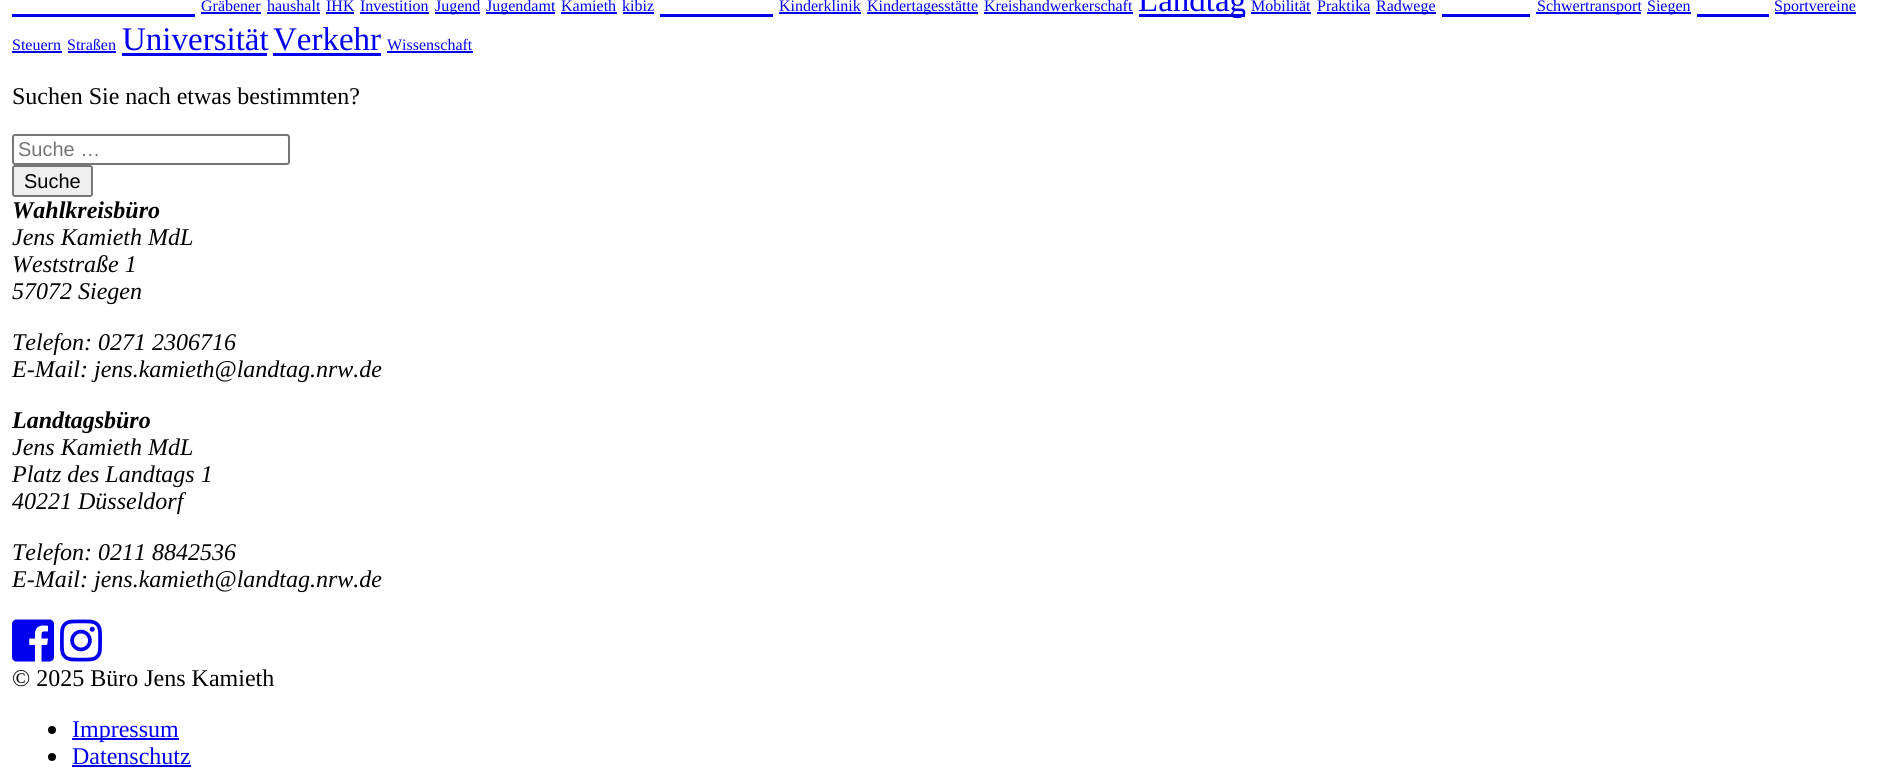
#include <cairo.h>
#include <math.h>
#include <stddef.h>

typedef struct { double x, y; const char *s; } line_t;
typedef struct { double x, y, w, h; unsigned color; } box_t;

static void ink(cairo_t *ctx, unsigned color) {
    cairo_set_source_rgb(ctx, (color >> 16) / 255.0, (color >> 8 & 255) / 255.0, (color & 255) / 255.0);
}

static void round_path(cairo_t *ctx, double x, double y, double w, double h, double r) {
    cairo_new_sub_path(ctx);
    cairo_arc(ctx, x + w - r, y + h - r, r, 0, M_PI / 2);
    cairo_arc(ctx, x + r, y + h - r, r, M_PI / 2, M_PI);
    cairo_arc(ctx, x + r, y + r, r, M_PI, 1.5 * M_PI);
    cairo_arc(ctx, x + w - r, y + r, r, 1.5 * M_PI, 2 * M_PI);
    cairo_close_path(ctx);
}

static void paste(cairo_t *ctx, const char *path, double x, double y, double w, double h) {
    cairo_surface_t *image = cairo_image_surface_create_from_png(path);
    cairo_save(ctx);
    cairo_set_source_surface(ctx, image, x, y);
    cairo_rectangle(ctx, x, y, w, h);
    cairo_fill(ctx);
    cairo_restore(ctx);
    cairo_surface_destroy(image);
}

int main(void) {
    cairo_surface_t *surface = cairo_image_surface_create(CAIRO_FORMAT_RGB24, 1877, 769);
    cairo_t *ctx = cairo_create(surface);
    cairo_font_options_t *options = cairo_font_options_create();
    cairo_font_options_set_hint_metrics(options, CAIRO_HINT_METRICS_OFF);
    cairo_font_options_set_hint_style(options, CAIRO_HINT_STYLE_NONE);
    cairo_set_font_options(ctx, options);
    cairo_set_miter_limit(ctx, 4);
    ink(ctx, 0xFFFFFF);
    cairo_paint(ctx);
    cairo_select_font_face(ctx, "Liberation Serif", CAIRO_FONT_SLANT_NORMAL, CAIRO_FONT_WEIGHT_NORMAL);
    cairo_set_font_size(ctx, 16);
    ink(ctx, 0x0000EE);
    cairo_move_to(ctx, 201, 11);
    cairo_show_text(ctx, "Gräbener");
    cairo_rectangle(ctx, 201, 12, 60, 2);
    cairo_fill(ctx);
    cairo_move_to(ctx, 267, 11);
    cairo_show_text(ctx, "haushalt");
    cairo_rectangle(ctx, 267, 12, 53, 2);
    cairo_fill(ctx);
    cairo_move_to(ctx, 326, 11);
    cairo_show_text(ctx, "IHK");
    cairo_rectangle(ctx, 326, 12, 28, 2);
    cairo_fill(ctx);
    cairo_move_to(ctx, 360, 11);
    cairo_show_text(ctx, "Investition");
    cairo_rectangle(ctx, 360, 12, 69, 2);
    cairo_fill(ctx);
    cairo_rectangle(ctx, 435, 12, 45, 2);
    cairo_fill(ctx);
    cairo_move_to(ctx, 435, 11);
    cairo_show_text(ctx, "Jugend");
    cairo_rectangle(ctx, 486, 12, 69, 2);
    cairo_fill(ctx);
    cairo_move_to(ctx, 486, 11);
    cairo_show_text(ctx, "Jugendamt");
    cairo_move_to(ctx, 561, 11);
    cairo_show_text(ctx, "Kamieth");
    cairo_rectangle(ctx, 561, 12, 56, 2);
    cairo_fill(ctx);
    cairo_move_to(ctx, 622, 11);
    cairo_show_text(ctx, "kibiz");
    cairo_rectangle(ctx, 623, 12, 31, 2);
    cairo_fill(ctx);
    cairo_move_to(ctx, 779, 11);
    cairo_show_text(ctx, "Kinderklinik");
    cairo_rectangle(ctx, 779, 12, 82, 2);
    cairo_fill(ctx);
    cairo_rectangle(ctx, 867, 12, 111, 2);
    cairo_fill(ctx);
    cairo_move_to(ctx, 867, 11);
    cairo_show_text(ctx, "Kindertagesstätte");
    cairo_move_to(ctx, 984, 11);
    cairo_show_text(ctx, "Kreishandwerkerschaft");
    cairo_rectangle(ctx, 984, 12, 149, 2);
    cairo_fill(ctx);
    cairo_rectangle(ctx, 1139, 14, 106, 3);
    cairo_fill(ctx);
    cairo_set_font_size(ctx, 33);
    cairo_move_to(ctx, 1138, 11);
    cairo_show_text(ctx, "Landtag");
    cairo_set_font_size(ctx, 16);
    cairo_move_to(ctx, 1251, 11);
    cairo_show_text(ctx, "Mobilität");
    cairo_rectangle(ctx, 1251, 12, 60, 2);
    cairo_fill(ctx);
    cairo_move_to(ctx, 1317, 11);
    cairo_show_text(ctx, "Praktika");
    cairo_rectangle(ctx, 1317, 12, 53, 2);
    cairo_fill(ctx);
    cairo_rectangle(ctx, 1376, 12, 60, 2);
    cairo_fill(ctx);
    cairo_move_to(ctx, 1376, 11);
    cairo_show_text(ctx, "Radwege");
    cairo_rectangle(ctx, 1536, 12, 105, 2);
    cairo_fill(ctx);
    cairo_move_to(ctx, 1537, 11);
    cairo_show_text(ctx, "Schwertransport");
    cairo_rectangle(ctx, 1647, 12, 44, 2);
    cairo_fill(ctx);
    cairo_move_to(ctx, 1647, 11);
    cairo_show_text(ctx, "Siegen");
    cairo_rectangle(ctx, 1775, 12, 81, 2);
    cairo_fill(ctx);
    cairo_move_to(ctx, 1774, 11);
    cairo_show_text(ctx, "Sportvereine");
    {
        static const box_t items[] = {
            {12, 14, 183, 3, 0x0000EE},
            {660, 14, 113, 3, 0x0000EE},
            {1442, 14, 88, 3, 0x0000EE},
            {1697, 14, 72, 3, 0x0000EE},
        };
        for (size_t i = 0; i < sizeof items / sizeof *items; i++) {
            ink(ctx, items[i].color);
            cairo_rectangle(ctx, items[i].x, items[i].y, items[i].w, items[i].h);
            cairo_fill(ctx);
        }
    }
    cairo_move_to(ctx, 12, 50);
    cairo_show_text(ctx, "Steuern");
    cairo_rectangle(ctx, 12, 51, 50, 2);
    cairo_fill(ctx);
    cairo_move_to(ctx, 67, 50);
    cairo_show_text(ctx, "Straßen");
    cairo_rectangle(ctx, 68, 51, 48, 2);
    cairo_fill(ctx);
    cairo_set_font_size(ctx, 33);
    cairo_move_to(ctx, 122, 50);
    cairo_show_text(ctx, "Universität");
    cairo_rectangle(ctx, 122, 53, 145, 3);
    cairo_fill(ctx);
    cairo_move_to(ctx, 273, 50);
    cairo_show_text(ctx, "Verkehr");
    cairo_rectangle(ctx, 273, 53, 108, 3);
    cairo_fill(ctx);
    cairo_set_font_size(ctx, 16);
    cairo_move_to(ctx, 387, 50);
    cairo_show_text(ctx, "Wissenschaft");
    cairo_rectangle(ctx, 387, 51, 86, 2);
    cairo_fill(ctx);
    cairo_set_font_size(ctx, 24);
    ink(ctx, 0x000000);
    cairo_move_to(ctx, 12, 104);
    cairo_show_text(ctx, "Suchen Sie nach etwas bestimmten?");
    round_path(ctx, 13, 135, 276, 29, 2);
    ink(ctx, 0x767676);
    cairo_stroke(ctx);
    cairo_select_font_face(ctx, "Liberation Sans", CAIRO_FONT_SLANT_NORMAL, CAIRO_FONT_WEIGHT_NORMAL);
    cairo_set_font_size(ctx, 20);
    ink(ctx, 0x757575);
    cairo_move_to(ctx, 18, 156);
    cairo_show_text(ctx, "Suche …");
    ink(ctx, 0xEFEFEF);
    round_path(ctx, 13, 166, 79, 30, 2);
    cairo_fill_preserve(ctx);
    ink(ctx, 0x767676);
    cairo_stroke(ctx);
    ink(ctx, 0x000000);
    cairo_move_to(ctx, 24, 188);
    cairo_show_text(ctx, "Suche");
    cairo_select_font_face(ctx, "Liberation Serif", CAIRO_FONT_SLANT_ITALIC, CAIRO_FONT_WEIGHT_BOLD);
    cairo_set_font_size(ctx, 24);
    cairo_move_to(ctx, 12, 218);
    cairo_show_text(ctx, "Wahlkreisbüro");
    cairo_select_font_face(ctx, "Liberation Serif", CAIRO_FONT_SLANT_ITALIC, CAIRO_FONT_WEIGHT_NORMAL);
    {
        static const line_t items[] = {
            {12, 245, "Jens Kamieth MdL"},
            {12, 272, "Weststraße 1"},
            {12, 299, "57072 Siegen"},
            {12, 350, "Telefon: 0271 2306716"},
            {12, 377, "E-Mail: jens.kamieth@landtag.nrw.de"},
        };
        for (size_t i = 0; i < sizeof items / sizeof *items; i++) {
            cairo_move_to(ctx, items[i].x, items[i].y);
            cairo_show_text(ctx, items[i].s);
        }
    }
    cairo_select_font_face(ctx, "Liberation Serif", CAIRO_FONT_SLANT_ITALIC, CAIRO_FONT_WEIGHT_BOLD);
    cairo_move_to(ctx, 12, 428);
    cairo_show_text(ctx, "Landtagsbüro");
    cairo_select_font_face(ctx, "Liberation Serif", CAIRO_FONT_SLANT_ITALIC, CAIRO_FONT_WEIGHT_NORMAL);
    {
        static const line_t items[] = {
            {12, 455, "Jens Kamieth MdL"},
            {12, 482, "Platz des Landtags 1"},
            {12, 509, "40221 Düsseldorf"},
            {12, 560, "Telefon: 0211 8842536"},
            {12, 587, "E-Mail: jens.kamieth@landtag.nrw.de"},
        };
        for (size_t i = 0; i < sizeof items / sizeof *items; i++) {
            cairo_move_to(ctx, items[i].x, items[i].y);
            cairo_show_text(ctx, items[i].s);
        }
    }
    paste(ctx, "media/1.png", 12, 619, 42, 43);
    paste(ctx, "media/2.png", 60, 619, 42, 43);
    cairo_select_font_face(ctx, "Liberation Serif", CAIRO_FONT_SLANT_NORMAL, CAIRO_FONT_WEIGHT_NORMAL);
    cairo_move_to(ctx, 12, 686);
    cairo_show_text(ctx, "© 2025 Büro Jens Kamieth");
    cairo_new_path(ctx);
    cairo_arc(ctx, 52, 730, 4, 0, 2 * M_PI);
    cairo_fill(ctx);
    ink(ctx, 0x0000EE);
    cairo_rectangle(ctx, 72, 738, 107, 2);
    cairo_fill(ctx);
    cairo_move_to(ctx, 72, 737);
    cairo_show_text(ctx, "Impressum");
    ink(ctx, 0x000000);
    cairo_new_path(ctx);
    cairo_arc(ctx, 52, 757, 4, 0, 2 * M_PI);
    cairo_fill(ctx);
    ink(ctx, 0x0000EE);
    cairo_move_to(ctx, 72, 764);
    cairo_show_text(ctx, "Datenschutz");
    cairo_rectangle(ctx, 72, 765, 119, 2);
    cairo_fill(ctx);
    cairo_surface_write_to_png(surface, "image.png");
    cairo_font_options_destroy(options);
    cairo_destroy(ctx);
    cairo_surface_destroy(surface);
    return 0;
}
